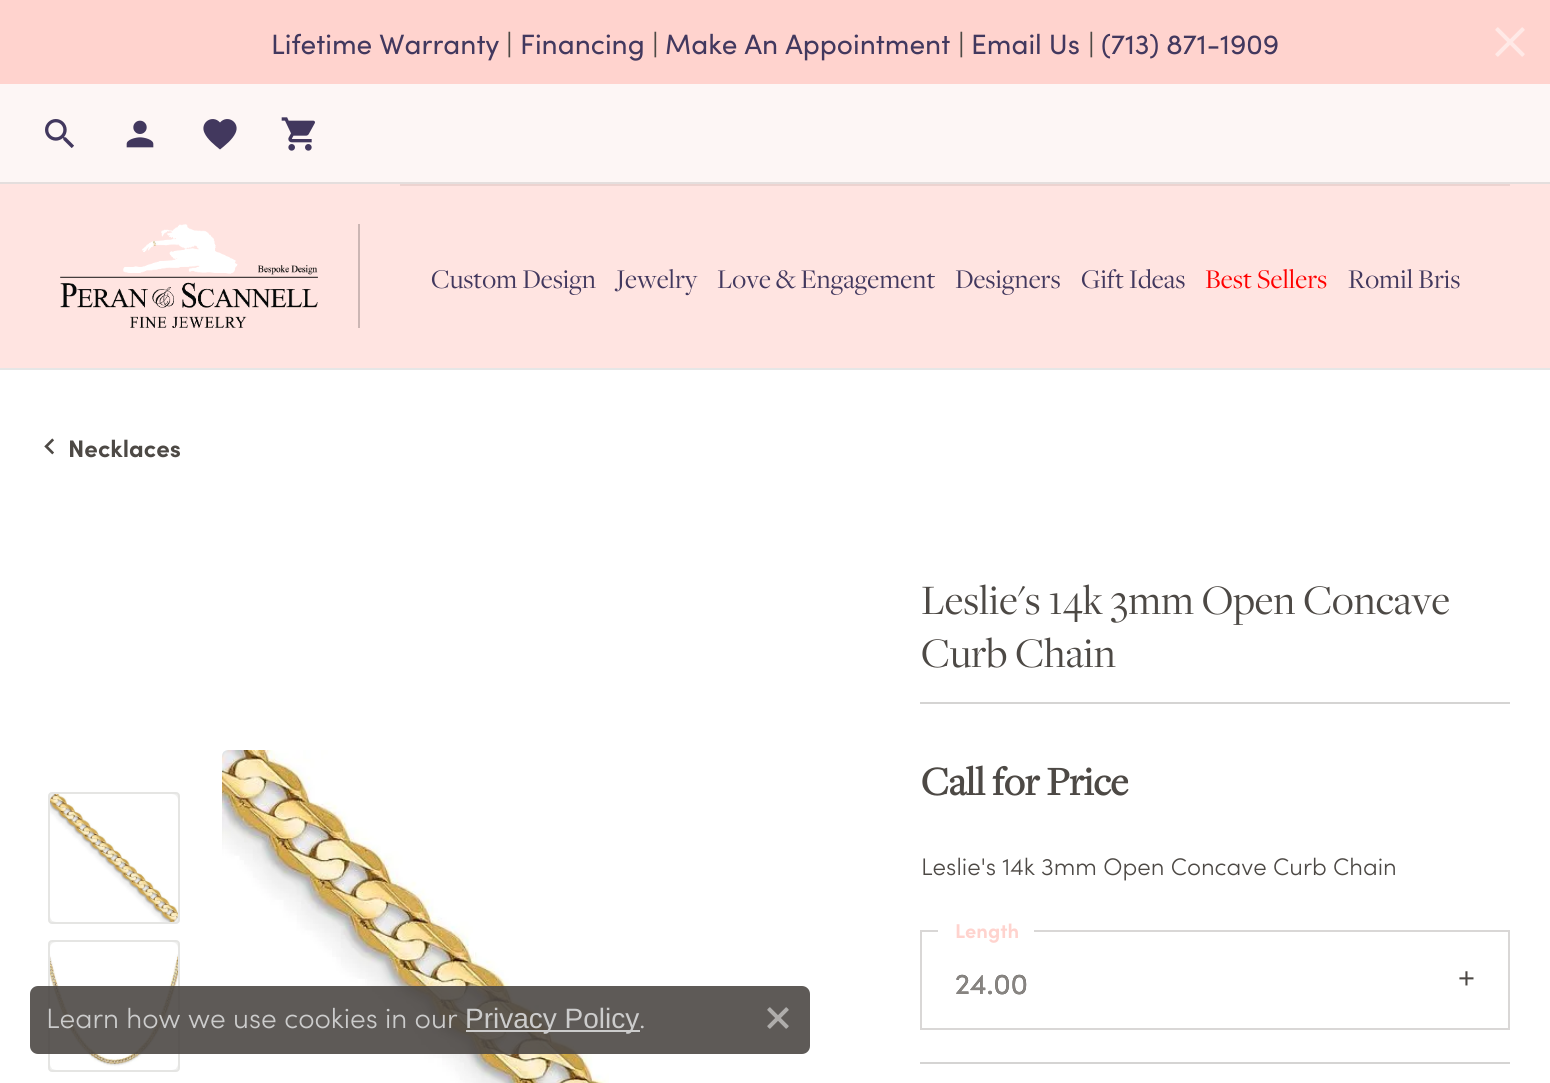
#include <cairo.h>
#include <math.h>
#include <stddef.h>

typedef struct { double x, y; const char *s; } line_t;

static void ink(cairo_t *ctx, unsigned color) {
    cairo_set_source_rgb(ctx, (color >> 16) / 255.0, (color >> 8 & 255) / 255.0, (color & 255) / 255.0);
}

static void round_path(cairo_t *ctx, double x, double y, double w, double h, double r) {
    cairo_new_sub_path(ctx);
    cairo_arc(ctx, x + w - r, y + h - r, r, 0, M_PI / 2);
    cairo_arc(ctx, x + r, y + h - r, r, M_PI / 2, M_PI);
    cairo_arc(ctx, x + r, y + r, r, M_PI, 1.5 * M_PI);
    cairo_arc(ctx, x + w - r, y + r, r, 1.5 * M_PI, 2 * M_PI);
    cairo_close_path(ctx);
}

static void paste(cairo_t *ctx, const char *path, double x, double y, double w, double h) {
    cairo_surface_t *image = cairo_image_surface_create_from_png(path);
    cairo_save(ctx);
    cairo_set_source_surface(ctx, image, x, y);
    cairo_rectangle(ctx, x, y, w, h);
    cairo_fill(ctx);
    cairo_restore(ctx);
    cairo_surface_destroy(image);
}

int main(void) {
    cairo_surface_t *surface = cairo_image_surface_create(CAIRO_FORMAT_RGB24, 1550, 1083);
    cairo_t *ctx = cairo_create(surface);
    cairo_font_options_t *options = cairo_font_options_create();
    cairo_font_options_set_hint_metrics(options, CAIRO_HINT_METRICS_OFF);
    cairo_font_options_set_hint_style(options, CAIRO_HINT_STYLE_NONE);
    cairo_set_font_options(ctx, options);
    cairo_set_miter_limit(ctx, 4);
    ink(ctx, 0xFFE4E1);
    cairo_paint(ctx);
    ink(ctx, 0xFFD3CE);
    cairo_rectangle(ctx, 0, 0, 1550, 84);
    cairo_fill(ctx);
    cairo_select_font_face(ctx, "Sofia", CAIRO_FONT_SLANT_NORMAL, CAIRO_FONT_WEIGHT_NORMAL);
    cairo_set_font_size(ctx, 28);
    ink(ctx, 0x42385E);
    cairo_move_to(ctx, 271, 54);
    cairo_show_text(ctx, "Lifetime Warranty");
    ink(ctx, 0x4D4945);
    cairo_move_to(ctx, 506, 54);
    cairo_show_text(ctx, "|");
    ink(ctx, 0x42385E);
    cairo_move_to(ctx, 520, 54);
    cairo_show_text(ctx, "Financing");
    ink(ctx, 0x4D4945);
    cairo_move_to(ctx, 652, 54);
    cairo_show_text(ctx, "|");
    ink(ctx, 0x42385E);
    cairo_move_to(ctx, 665, 54);
    cairo_show_text(ctx, "Make An Appointment");
    ink(ctx, 0x4D4945);
    cairo_move_to(ctx, 958, 54);
    cairo_show_text(ctx, "|");
    ink(ctx, 0x42385E);
    cairo_move_to(ctx, 971, 54);
    cairo_show_text(ctx, "Email Us");
    ink(ctx, 0x4D4945);
    cairo_move_to(ctx, 1088, 54);
    cairo_show_text(ctx, "|");
    ink(ctx, 0x42385E);
    cairo_move_to(ctx, 1101, 54);
    cairo_show_text(ctx, "(713) 871-1909");
    paste(ctx, "media/1.png", 1495, 27, 30, 30);
    ink(ctx, 0xFDF6F5);
    cairo_rectangle(ctx, 0, 84, 1550, 100);
    cairo_fill(ctx);
    paste(ctx, "media/2.png", 45, 119, 29, 29);
    paste(ctx, "media/3.png", 126, 120, 28, 28);
    ink(ctx, 0x42385E);
    cairo_new_path(ctx);
    cairo_move_to(ctx, 220, 149.5);
    cairo_curve_to(ctx, 214.5, 145, 207.5, 139.5, 204.5, 133);
    cairo_curve_to(ctx, 199.5, 122.5, 212.5, 114, 220, 122.5);
    cairo_curve_to(ctx, 227.5, 114, 240.5, 122.5, 235.5, 133);
    cairo_curve_to(ctx, 232.5, 139.5, 225.5, 145, 220, 149.5);
    cairo_close_path(ctx);
    cairo_fill(ctx);
    paste(ctx, "media/4.png", 281, 117, 34, 34);
    ink(ctx, 0xFFFFFF);
    cairo_rectangle(ctx, 0, 368, 1550, 715);
    cairo_fill(ctx);
    cairo_rectangle(ctx, -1, 183, 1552, 186);
    cairo_set_source_rgba(ctx, 0, 0, 0, 0.1);
    cairo_stroke(ctx);
    ink(ctx, 0xCCB6B4);
    cairo_rectangle(ctx, 358, 224, 2, 104);
    cairo_fill(ctx);
    paste(ctx, "media/5.png", 60, 224, 258, 104);
    ink(ctx, 0xECD3D0);
    cairo_rectangle(ctx, 400, 184, 1110, 2);
    cairo_fill(ctx);
    cairo_select_font_face(ctx, "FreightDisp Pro", CAIRO_FONT_SLANT_NORMAL, CAIRO_FONT_WEIGHT_NORMAL);
    ink(ctx, 0x42385E);
    {
        static const line_t items[] = {
            {431, 288, "Custom Design"},
            {616, 288, "Jewelry"},
            {717, 288, "Love & Engagement"},
            {955, 288, "Designers"},
            {1081, 288, "Gift Ideas"},
        };
        for (size_t i = 0; i < sizeof items / sizeof *items; i++) {
            cairo_move_to(ctx, items[i].x, items[i].y);
            cairo_show_text(ctx, items[i].s);
        }
    }
    ink(ctx, 0xFF0000);
    cairo_move_to(ctx, 1205, 288);
    cairo_show_text(ctx, "Best Sellers");
    ink(ctx, 0x42385E);
    cairo_move_to(ctx, 1348, 288);
    cairo_show_text(ctx, "Romil Bris");
    paste(ctx, "media/6.png", 44, 438, 10, 17);
    cairo_select_font_face(ctx, "Sofia", CAIRO_FONT_SLANT_NORMAL, CAIRO_FONT_WEIGHT_BOLD);
    cairo_set_font_size(ctx, 24);
    ink(ctx, 0x4D4945);
    cairo_move_to(ctx, 68, 457);
    cairo_show_text(ctx, "Necklaces");
    ink(ctx, 0xF0F0EF);
    round_path(ctx, 48, 792, 132, 132, 4);
    cairo_fill(ctx);
    round_path(ctx, 49, 793, 130, 130, 3);
    cairo_set_source_rgba(ctx, 0.302, 0.286, 0.271, 0.07);
    cairo_stroke(ctx);
    paste(ctx, "media/7.png", 50, 794, 128, 128);
    ink(ctx, 0xF0F0EF);
    round_path(ctx, 48, 940, 132, 132, 4);
    cairo_fill(ctx);
    round_path(ctx, 49, 941, 130, 130, 3);
    cairo_set_source_rgba(ctx, 0.302, 0.286, 0.271, 0.07);
    cairo_stroke(ctx);
    paste(ctx, "media/8.png", 50, 942, 128, 128);
    paste(ctx, "media/9.png", 222, 750, 387, 333);
    cairo_select_font_face(ctx, "FreightDisp Pro", CAIRO_FONT_SLANT_NORMAL, CAIRO_FONT_WEIGHT_NORMAL);
    cairo_set_font_size(ctx, 43.5);
    ink(ctx, 0x4D4945);
    cairo_move_to(ctx, 921, 614);
    cairo_show_text(ctx, "Leslie's 14k 3mm Open Concave");
    cairo_move_to(ctx, 921, 667);
    cairo_show_text(ctx, "Curb Chain");
    ink(ctx, 0xD5D4D3);
    cairo_rectangle(ctx, 920, 702, 590, 2);
    cairo_fill(ctx);
    cairo_select_font_face(ctx, "FreightDisp Pro", CAIRO_FONT_SLANT_NORMAL, CAIRO_FONT_WEIGHT_BOLD);
    cairo_set_font_size(ctx, 41.5);
    ink(ctx, 0x4D4945);
    cairo_move_to(ctx, 921, 795);
    cairo_show_text(ctx, "Call for Price");
    cairo_select_font_face(ctx, "Sofia Light", CAIRO_FONT_SLANT_NORMAL, CAIRO_FONT_WEIGHT_NORMAL);
    cairo_set_font_size(ctx, 24);
    cairo_move_to(ctx, 921, 875);
    cairo_show_text(ctx, "Leslie's 14k 3mm Open Concave Curb Chain");
    cairo_rectangle(ctx, 921, 931, 588, 98);
    ink(ctx, 0xD9D7D6);
    cairo_stroke(ctx);
    ink(ctx, 0xFFFFFF);
    cairo_rectangle(ctx, 938, 930, 96, 2);
    cairo_fill(ctx);
    cairo_select_font_face(ctx, "Sofia", CAIRO_FONT_SLANT_NORMAL, CAIRO_FONT_WEIGHT_BOLD);
    cairo_set_font_size(ctx, 20);
    ink(ctx, 0xFFD3CE);
    cairo_move_to(ctx, 955, 938);
    cairo_show_text(ctx, "Length");
    cairo_select_font_face(ctx, "Sofia", CAIRO_FONT_SLANT_NORMAL, CAIRO_FONT_WEIGHT_NORMAL);
    cairo_set_font_size(ctx, 29);
    ink(ctx, 0x4D4945);
    cairo_move_to(ctx, 955, 994);
    cairo_show_text(ctx, "24.00");
    cairo_select_font_face(ctx, "Liberation Sans", CAIRO_FONT_SLANT_NORMAL, CAIRO_FONT_WEIGHT_NORMAL);
    cairo_move_to(ctx, 1458, 988);
    cairo_show_text(ctx, "+");
    cairo_select_font_face(ctx, "Sofia", CAIRO_FONT_SLANT_NORMAL, CAIRO_FONT_WEIGHT_NORMAL);
    ink(ctx, 0x878481);
    cairo_move_to(ctx, 955, 994);
    cairo_show_text(ctx, "24.00");
    ink(ctx, 0xD5D4D3);
    cairo_rectangle(ctx, 920, 1062, 590, 2);
    cairo_fill(ctx);
    cairo_set_source_rgba(ctx, 0.302, 0.286, 0.271, 0.9);
    round_path(ctx, 30, 986, 780, 68, 8);
    cairo_fill(ctx);
    cairo_select_font_face(ctx, "Sofia Light", CAIRO_FONT_SLANT_NORMAL, CAIRO_FONT_WEIGHT_NORMAL);
    cairo_set_font_size(ctx, 28);
    ink(ctx, 0xCCCCCC);
    cairo_move_to(ctx, 46, 1028);
    cairo_show_text(ctx, "Learn how we use cookies in our");
    cairo_rectangle(ctx, 466, 1030, 174, 2);
    cairo_fill(ctx);
    cairo_select_font_face(ctx, "Liberation Sans", CAIRO_FONT_SLANT_NORMAL, CAIRO_FONT_WEIGHT_NORMAL);
    cairo_move_to(ctx, 465, 1028);
    cairo_show_text(ctx, "Privacy Policy");
    cairo_select_font_face(ctx, "Sofia Light", CAIRO_FONT_SLANT_NORMAL, CAIRO_FONT_WEIGHT_NORMAL);
    cairo_move_to(ctx, 639, 1028);
    cairo_show_text(ctx, ".");
    paste(ctx, "media/10.png", 767, 1007, 22, 22);
    cairo_surface_write_to_png(surface, "image.png");
    cairo_font_options_destroy(options);
    cairo_destroy(ctx);
    cairo_surface_destroy(surface);
    return 0;
}
